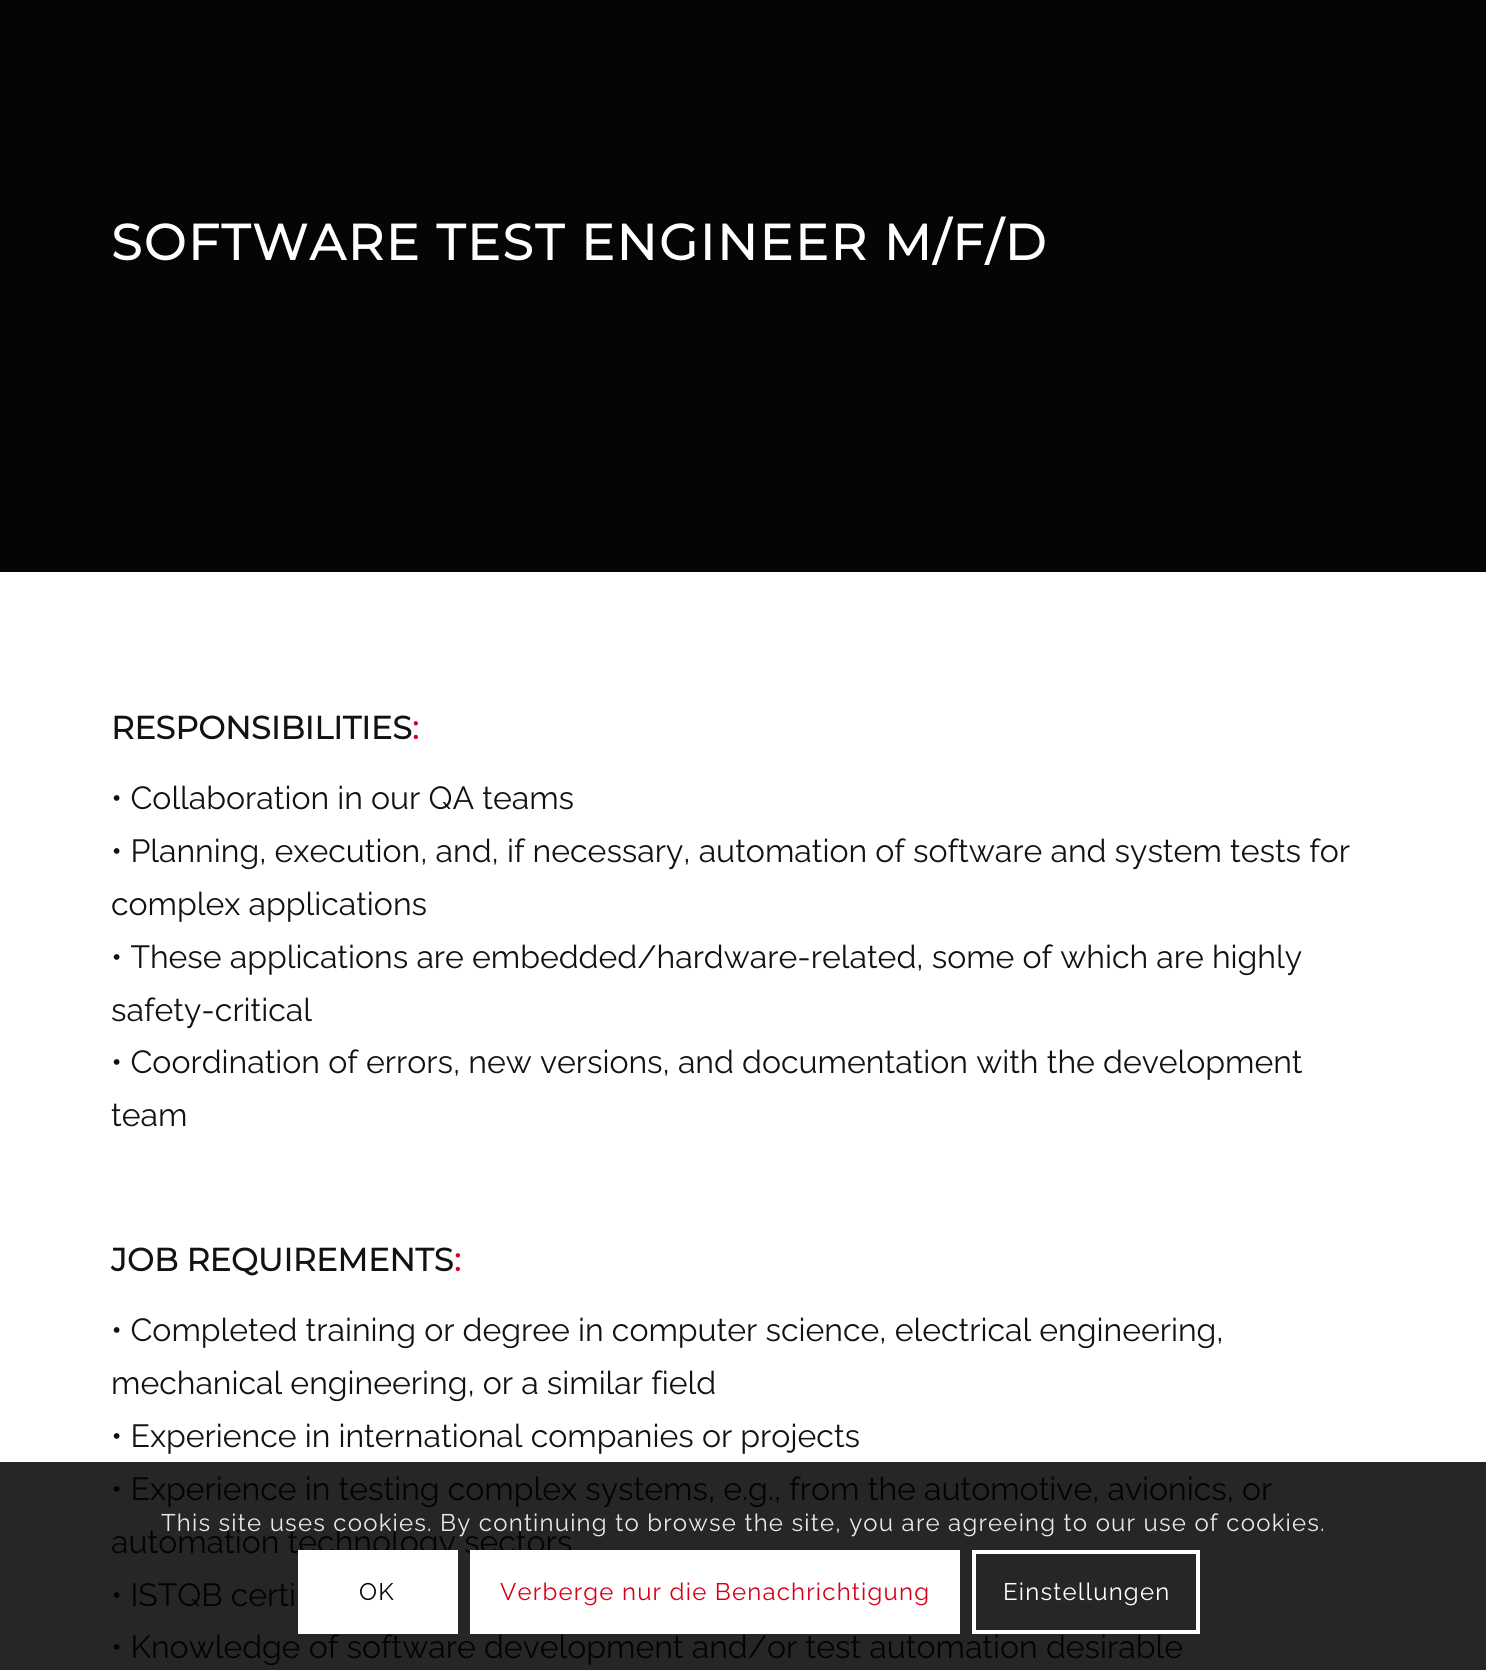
#include <cairo.h>
#include <math.h>
#include <stddef.h>

typedef struct { double x, y; const char *s; } line_t;

static void ink(cairo_t *ctx, unsigned color) {
    cairo_set_source_rgb(ctx, (color >> 16) / 255.0, (color >> 8 & 255) / 255.0, (color & 255) / 255.0);
}

static void write_spaced(cairo_t *ctx, double x, double y, const char *s, double letter, double word) {
    cairo_move_to(ctx, x, y);
    while (*s) {
        char ch[5] = {0};
        int n = 0;
        do ch[n++] = *s++; while ((*s & 0xC0) == 0x80);
        cairo_show_text(ctx, ch);
        cairo_rel_move_to(ctx, letter + word * (*ch == ' '), 0);
    }
}

int main(void) {
    cairo_surface_t *surface = cairo_image_surface_create(CAIRO_FORMAT_RGB24, 1486, 1670);
    cairo_t *ctx = cairo_create(surface);
    cairo_font_options_t *options = cairo_font_options_create();
    cairo_font_options_set_hint_metrics(options, CAIRO_HINT_METRICS_OFF);
    cairo_font_options_set_hint_style(options, CAIRO_HINT_STYLE_NONE);
    cairo_set_font_options(ctx, options);
    cairo_set_miter_limit(ctx, 4);
    ink(ctx, 0xFFFFFF);
    cairo_paint(ctx);
    ink(ctx, 0x262626);
    cairo_rectangle(ctx, 0, 1462, 1486, 208);
    cairo_fill(ctx);
    ink(ctx, 0x050505);
    cairo_rectangle(ctx, 0, 0, 1486, 572);
    cairo_fill(ctx);
    cairo_select_font_face(ctx, "Montserrat", CAIRO_FONT_SLANT_NORMAL, CAIRO_FONT_WEIGHT_BOLD);
    cairo_set_font_size(ctx, 50);
    ink(ctx, 0xFFFFFF);
    write_spaced(ctx, 111, 260, "SOFTWARE TEST ENGINEER M/F/D", 2, 0);
    cairo_set_font_size(ctx, 32);
    ink(ctx, 0x121212);
    cairo_move_to(ctx, 111, 739);
    cairo_show_text(ctx, "RESPONSIBILITIES");
    ink(ctx, 0xD80019);
    cairo_move_to(ctx, 412, 739);
    cairo_show_text(ctx, ":");
    cairo_select_font_face(ctx, "Raleway Thin", CAIRO_FONT_SLANT_NORMAL, CAIRO_FONT_WEIGHT_NORMAL);
    ink(ctx, 0x121212);
    {
        static const line_t items[] = {
            {111, 809, "• Collaboration in our QA teams"},
            {111, 862, "• Planning, execution, and, if necessary, automation of software and system tests for"},
            {111, 915, "complex applications"},
            {111, 968, "• These applications are embedded/hardware-related, some of which are highly"},
            {111, 1021, "safety-critical"},
            {111, 1073, "• Coordination of errors, new versions, and documentation with the development"},
            {111, 1126, "team"},
        };
        for (size_t i = 0; i < sizeof items / sizeof *items; i++) {
            cairo_move_to(ctx, items[i].x, items[i].y);
            cairo_show_text(ctx, items[i].s);
        }
    }
    cairo_select_font_face(ctx, "Montserrat", CAIRO_FONT_SLANT_NORMAL, CAIRO_FONT_WEIGHT_BOLD);
    cairo_move_to(ctx, 111, 1271);
    cairo_show_text(ctx, "JOB REQUIREMENTS");
    ink(ctx, 0xD80019);
    cairo_move_to(ctx, 454, 1271);
    cairo_show_text(ctx, ":");
    cairo_select_font_face(ctx, "Raleway Thin", CAIRO_FONT_SLANT_NORMAL, CAIRO_FONT_WEIGHT_NORMAL);
    ink(ctx, 0x121212);
    {
        static const line_t items[] = {
            {111, 1341, "• Completed training or degree in computer science, electrical engineering,"},
            {111, 1394, "mechanical engineering, or a similar field"},
            {111, 1447, "• Experience in international companies or projects"},
        };
        for (size_t i = 0; i < sizeof items / sizeof *items; i++) {
            cairo_move_to(ctx, items[i].x, items[i].y);
            cairo_show_text(ctx, items[i].s);
        }
    }
    ink(ctx, 0x030303);
    {
        static const line_t items[] = {
            {111, 1500, "• Experience in testing complex systems, e.g., from the automotive, avionics, or"},
            {111, 1553, "automation technology sectors"},
            {111, 1606, "• ISTQB certi"},
            {111, 1658, "• Knowledge of software development and/or test automation desirable"},
        };
        for (size_t i = 0; i < sizeof items / sizeof *items; i++) {
            cairo_move_to(ctx, items[i].x, items[i].y);
            cairo_show_text(ctx, items[i].s);
        }
    }
    cairo_set_font_size(ctx, 24);
    ink(ctx, 0xE9E9E9);
    write_spaced(ctx, 161, 1531, "This site uses cookies. By continuing to browse the site, you are agreeing to our use of cookies.", 1.2, 0);
    ink(ctx, 0xFFFFFF);
    cairo_rectangle(ctx, 298, 1550, 160, 84);
    cairo_fill(ctx);
    ink(ctx, 0x030303);
    write_spaced(ctx, 359, 1600, "OK", 1.2, 0);
    ink(ctx, 0xFFFFFF);
    cairo_rectangle(ctx, 470, 1550, 490, 84);
    cairo_fill(ctx);
    ink(ctx, 0xD80019);
    write_spaced(ctx, 500, 1600, "Verberge nur die Benachrichtigung", 1.2, 0);
    cairo_rectangle(ctx, 974, 1552, 224, 80);
    ink(ctx, 0xFFFFFF);
    cairo_set_line_width(ctx, 4);
    cairo_stroke(ctx);
    write_spaced(ctx, 1003, 1600, "Einstellungen", 1.2, 0);
    cairo_surface_write_to_png(surface, "image.png");
    cairo_font_options_destroy(options);
    cairo_destroy(ctx);
    cairo_surface_destroy(surface);
    return 0;
}
